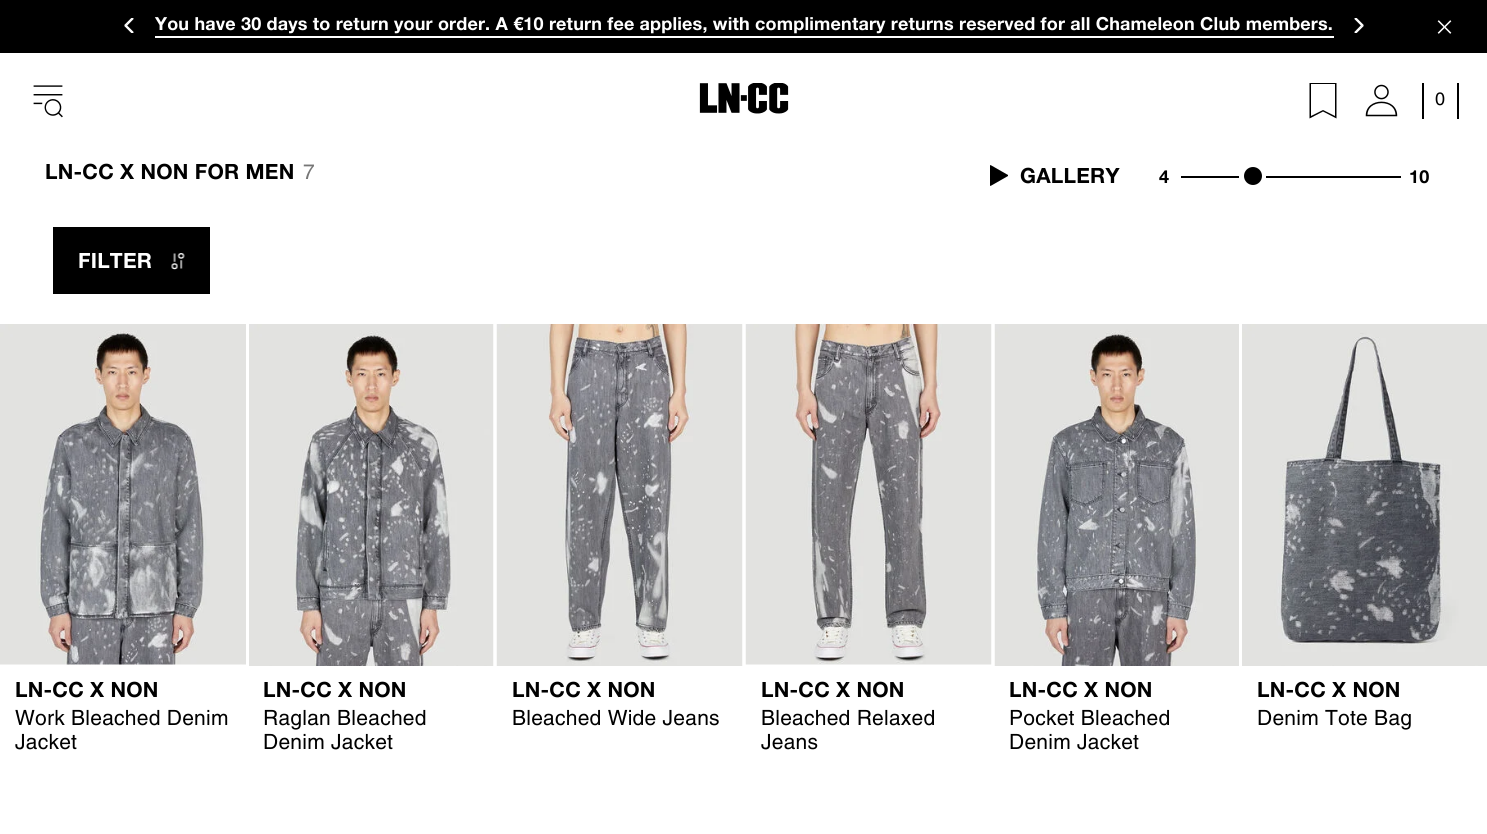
#include <cairo.h>
#include <math.h>
#include <stddef.h>


static void ink(cairo_t *ctx, unsigned color) {
    cairo_set_source_rgb(ctx, (color >> 16) / 255.0, (color >> 8 & 255) / 255.0, (color & 255) / 255.0);
}

static void write_spaced(cairo_t *ctx, double x, double y, const char *s, double letter, double word) {
    cairo_move_to(ctx, x, y);
    while (*s) {
        char ch[5] = {0};
        int n = 0;
        do ch[n++] = *s++; while ((*s & 0xC0) == 0x80);
        cairo_show_text(ctx, ch);
        cairo_rel_move_to(ctx, letter + word * (*ch == ' '), 0);
    }
}

static void paste(cairo_t *ctx, const char *path, double x, double y, double w, double h) {
    cairo_surface_t *image = cairo_image_surface_create_from_png(path);
    cairo_save(ctx);
    cairo_set_source_surface(ctx, image, x, y);
    cairo_rectangle(ctx, x, y, w, h);
    cairo_fill(ctx);
    cairo_restore(ctx);
    cairo_surface_destroy(image);
}

int main(void) {
    cairo_surface_t *surface = cairo_image_surface_create(CAIRO_FORMAT_RGB24, 1487, 834);
    cairo_t *ctx = cairo_create(surface);
    cairo_font_options_t *options = cairo_font_options_create();
    cairo_font_options_set_hint_metrics(options, CAIRO_HINT_METRICS_OFF);
    cairo_font_options_set_hint_style(options, CAIRO_HINT_STYLE_NONE);
    cairo_set_font_options(ctx, options);
    cairo_set_miter_limit(ctx, 4);
    ink(ctx, 0xFFFFFF);
    cairo_paint(ctx);
    ink(ctx, 0x000000);
    cairo_rectangle(ctx, 0, 0, 1487, 53);
    cairo_fill(ctx);
    paste(ctx, "media/1.png", 124, 18, 10, 15);
    cairo_select_font_face(ctx, "Helvetica Neue", CAIRO_FONT_SLANT_NORMAL, CAIRO_FONT_WEIGHT_BOLD);
    cairo_set_font_size(ctx, 18);
    ink(ctx, 0xFFFFFF);
    write_spaced(ctx, 155, 30, "You have 30 days to return your order. A €10 return fee applies, with complimentary returns reserved for all Chameleon Club members.", 0.18, 0);
    cairo_rectangle(ctx, 155, 36, 1179, 2);
    cairo_fill(ctx);
    paste(ctx, "media/2.png", 1354, 18, 10, 15);
    paste(ctx, "media/3.png", 1437, 20, 15, 14);
    paste(ctx, "media/4.png", 33, 85, 30, 33);
    paste(ctx, "media/5.png", 699, 83, 90, 31);
    cairo_save(ctx);
    cairo_rectangle(ctx, 1305, 83, 36, 36);
    cairo_clip(ctx);
    ink(ctx, 0x000000);
    cairo_new_path(ctx);
    cairo_move_to(ctx, 1336.5, 118.5);
    cairo_line_to(ctx, 1323, 111.5);
    cairo_line_to(ctx, 1309.5, 118.5);
    cairo_line_to(ctx, 1309.5, 82.5);
    cairo_line_to(ctx, 1336.5, 82.5);
    cairo_close_path(ctx);
    cairo_move_to(ctx, 1311, 84);
    cairo_line_to(ctx, 1311, 116);
    cairo_line_to(ctx, 1323, 110);
    cairo_line_to(ctx, 1335, 116);
    cairo_line_to(ctx, 1335, 84);
    cairo_close_path(ctx);
    cairo_fill(ctx);
    cairo_restore(ctx);
    paste(ctx, "media/6.png", 1365, 84, 33, 33);
    ink(ctx, 0x000000);
    cairo_rectangle(ctx, 1457, 83, 2, 36);
    cairo_fill(ctx);
    cairo_rectangle(ctx, 1422, 83, 2, 36);
    cairo_fill(ctx);
    cairo_select_font_face(ctx, "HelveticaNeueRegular", CAIRO_FONT_SLANT_NORMAL, CAIRO_FONT_WEIGHT_NORMAL);
    write_spaced(ctx, 1435, 105, "0", 0.18, 0);
    cairo_select_font_face(ctx, "Helvetica Neue", CAIRO_FONT_SLANT_NORMAL, CAIRO_FONT_WEIGHT_BOLD);
    cairo_set_font_size(ctx, 21);
    write_spaced(ctx, 45, 179, "LN-CC X NON FOR MEN", 0.25, 0);
    cairo_select_font_face(ctx, "HelveticaNeueRegular", CAIRO_FONT_SLANT_NORMAL, CAIRO_FONT_WEIGHT_NORMAL);
    ink(ctx, 0x767676);
    write_spaced(ctx, 303, 179, "7", 0.25, 0);
    ink(ctx, 0x000000);
    cairo_new_path(ctx);
    cairo_move_to(ctx, 990.5, 186);
    cairo_line_to(ctx, 990, 185.5);
    cairo_line_to(ctx, 990, 165.5);
    cairo_line_to(ctx, 990.5, 165);
    cairo_line_to(ctx, 1008, 175);
    cairo_line_to(ctx, 1008, 176);
    cairo_close_path(ctx);
    cairo_fill(ctx);
    cairo_select_font_face(ctx, "Helvetica Neue", CAIRO_FONT_SLANT_NORMAL, CAIRO_FONT_WEIGHT_BOLD);
    write_spaced(ctx, 1020, 183, "GALLERY", 0.25, 0);
    cairo_set_font_size(ctx, 18);
    write_spaced(ctx, 1159, 183, "4", 0.18, 0);
    cairo_rectangle(ctx, 1181, 176, 58, 2);
    cairo_fill(ctx);
    cairo_arc(ctx, 1253, 176, 9, 0, 2 * M_PI);
    cairo_fill(ctx);
    cairo_rectangle(ctx, 1266, 176, 135, 2);
    cairo_fill(ctx);
    write_spaced(ctx, 1409, 183, "10", 0.18, 0);
    cairo_rectangle(ctx, 53, 227, 157, 67);
    cairo_fill(ctx);
    cairo_set_font_size(ctx, 21);
    ink(ctx, 0xFFFFFF);
    write_spaced(ctx, 78, 268, "FILTER", 0.25, 0);
    paste(ctx, "media/7.png", 171, 253, 14, 17);
    paste(ctx, "media/8.png", 0, 324, 246, 341);
    ink(ctx, 0x000000);
    write_spaced(ctx, 15, 697, "LN-CC X NON", 0.25, 0);
    cairo_select_font_face(ctx, "HelveticaNeueRegular", CAIRO_FONT_SLANT_NORMAL, CAIRO_FONT_WEIGHT_NORMAL);
    write_spaced(ctx, 15, 725, "Work Bleached Denim", 0.25, 0);
    write_spaced(ctx, 15, 749, "Jacket", 0.25, 0);
    paste(ctx, "media/9.png", 249, 324, 245, 342);
    cairo_select_font_face(ctx, "Helvetica Neue", CAIRO_FONT_SLANT_NORMAL, CAIRO_FONT_WEIGHT_BOLD);
    write_spaced(ctx, 263, 697, "LN-CC X NON", 0.25, 0);
    cairo_select_font_face(ctx, "HelveticaNeueRegular", CAIRO_FONT_SLANT_NORMAL, CAIRO_FONT_WEIGHT_NORMAL);
    write_spaced(ctx, 263, 725, "Raglan Bleached", 0.25, 0);
    write_spaced(ctx, 263, 749, "Denim Jacket", 0.25, 0);
    paste(ctx, "media/10.png", 496, 324, 247, 342);
    cairo_select_font_face(ctx, "Helvetica Neue", CAIRO_FONT_SLANT_NORMAL, CAIRO_FONT_WEIGHT_BOLD);
    write_spaced(ctx, 512, 697, "LN-CC X NON", 0.25, 0);
    cairo_select_font_face(ctx, "HelveticaNeueRegular", CAIRO_FONT_SLANT_NORMAL, CAIRO_FONT_WEIGHT_NORMAL);
    write_spaced(ctx, 512, 725, "Bleached Wide Jeans", 0.25, 0);
    paste(ctx, "media/11.png", 745, 324, 247, 341);
    cairo_select_font_face(ctx, "Helvetica Neue", CAIRO_FONT_SLANT_NORMAL, CAIRO_FONT_WEIGHT_BOLD);
    write_spaced(ctx, 761, 697, "LN-CC X NON", 0.25, 0);
    cairo_select_font_face(ctx, "HelveticaNeueRegular", CAIRO_FONT_SLANT_NORMAL, CAIRO_FONT_WEIGHT_NORMAL);
    write_spaced(ctx, 761, 725, "Bleached Relaxed", 0.25, 0);
    write_spaced(ctx, 761, 749, "Jeans", 0.25, 0);
    paste(ctx, "media/12.png", 994, 324, 245, 342);
    cairo_select_font_face(ctx, "Helvetica Neue", CAIRO_FONT_SLANT_NORMAL, CAIRO_FONT_WEIGHT_BOLD);
    write_spaced(ctx, 1009, 697, "LN-CC X NON", 0.25, 0);
    cairo_select_font_face(ctx, "HelveticaNeueRegular", CAIRO_FONT_SLANT_NORMAL, CAIRO_FONT_WEIGHT_NORMAL);
    write_spaced(ctx, 1009, 725, "Pocket Bleached", 0.25, 0);
    write_spaced(ctx, 1009, 749, "Denim Jacket", 0.25, 0);
    paste(ctx, "media/13.png", 1242, 324, 245, 342);
    cairo_select_font_face(ctx, "Helvetica Neue", CAIRO_FONT_SLANT_NORMAL, CAIRO_FONT_WEIGHT_BOLD);
    write_spaced(ctx, 1257, 697, "LN-CC X NON", 0.25, 0);
    cairo_select_font_face(ctx, "HelveticaNeueRegular", CAIRO_FONT_SLANT_NORMAL, CAIRO_FONT_WEIGHT_NORMAL);
    write_spaced(ctx, 1257, 725, "Denim Tote Bag", 0.25, 0);
    cairo_surface_write_to_png(surface, "image.png");
    cairo_font_options_destroy(options);
    cairo_destroy(ctx);
    cairo_surface_destroy(surface);
    return 0;
}
